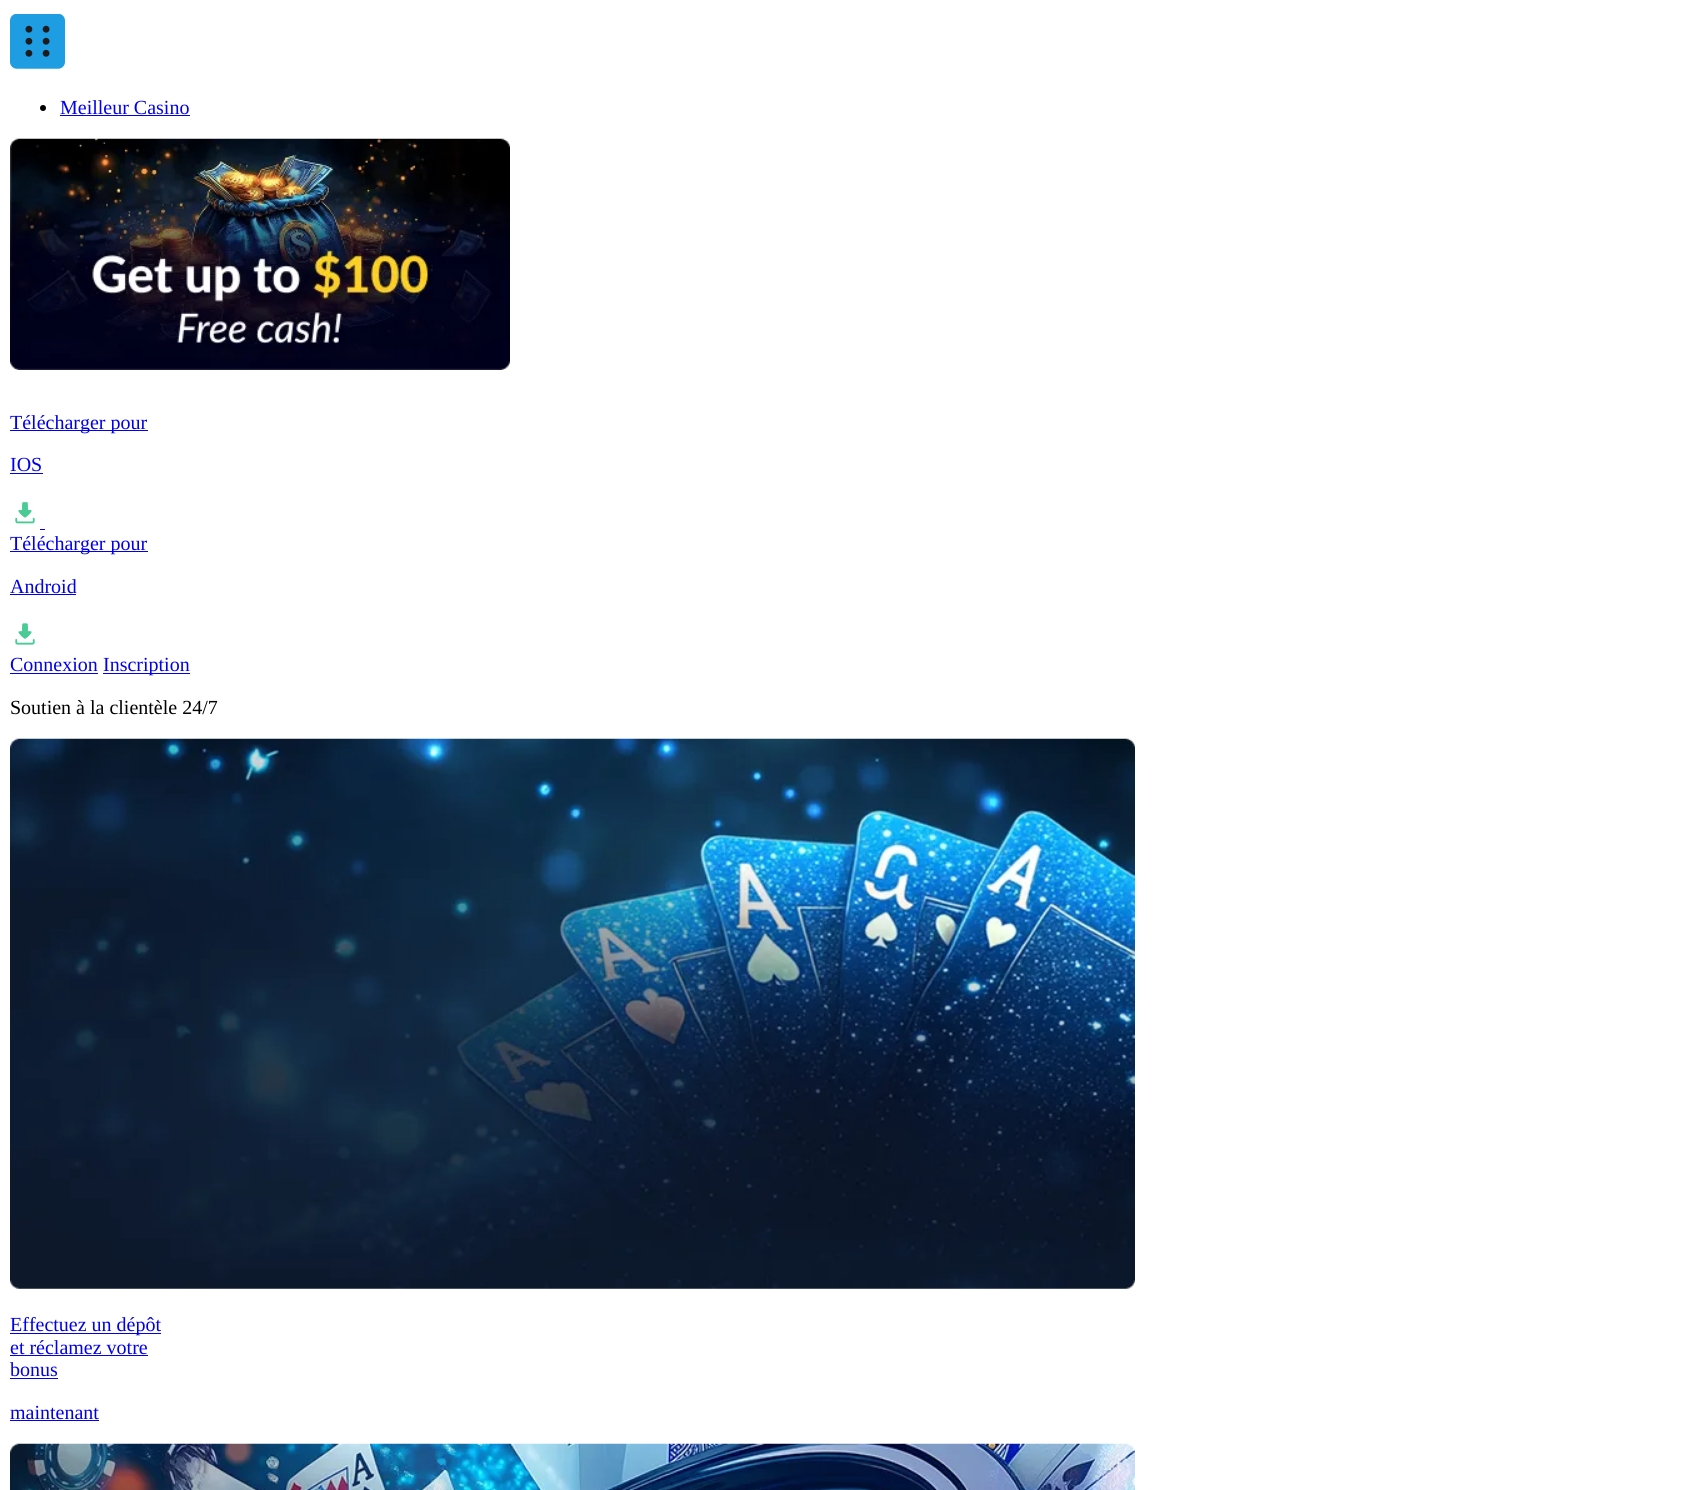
#include <cairo.h>
#include <math.h>
#include <stddef.h>


static void ink(cairo_t *ctx, unsigned color) {
    cairo_set_source_rgb(ctx, (color >> 16) / 255.0, (color >> 8 & 255) / 255.0, (color & 255) / 255.0);
}

static void paste(cairo_t *ctx, const char *path, double x, double y, double w, double h) {
    cairo_surface_t *image = cairo_image_surface_create_from_png(path);
    cairo_save(ctx);
    cairo_set_source_surface(ctx, image, x, y);
    cairo_rectangle(ctx, x, y, w, h);
    cairo_fill(ctx);
    cairo_restore(ctx);
    cairo_surface_destroy(image);
}

int main(void) {
    cairo_surface_t *surface = cairo_image_surface_create(CAIRO_FORMAT_RGB24, 1705, 1490);
    cairo_t *ctx = cairo_create(surface);
    cairo_font_options_t *options = cairo_font_options_create();
    cairo_font_options_set_hint_metrics(options, CAIRO_HINT_METRICS_OFF);
    cairo_font_options_set_hint_style(options, CAIRO_HINT_STYLE_NONE);
    cairo_set_font_options(ctx, options);
    cairo_set_miter_limit(ctx, 4);
    ink(ctx, 0xFFFFFF);
    cairo_paint(ctx);
    paste(ctx, "media/1.png", 10, 14, 55, 55);
    ink(ctx, 0x000000);
    cairo_arc(ctx, 43, 108, 3, 0, 2 * M_PI);
    cairo_fill(ctx);
    cairo_select_font_face(ctx, "Liberation Serif", CAIRO_FONT_SLANT_NORMAL, CAIRO_FONT_WEIGHT_NORMAL);
    cairo_set_font_size(ctx, 20);
    ink(ctx, 0x0000EE);
    cairo_move_to(ctx, 60, 114);
    cairo_show_text(ctx, "Meilleur Casino");
    cairo_rectangle(ctx, 60, 115, 130, 1);
    cairo_fill(ctx);
    paste(ctx, "media/2.png", 10, 138, 500, 232);
    cairo_rectangle(ctx, 10, 430, 138, 1);
    cairo_fill(ctx);
    cairo_move_to(ctx, 10, 429);
    cairo_show_text(ctx, "Télécharger pour");
    cairo_move_to(ctx, 10, 471);
    cairo_show_text(ctx, "IOS");
    cairo_rectangle(ctx, 10, 473, 33, 1);
    cairo_fill(ctx);
    paste(ctx, "media/3.png", 15, 502, 20, 22);
    cairo_rectangle(ctx, 40, 529, 5, 1);
    cairo_fill(ctx);
    cairo_rectangle(ctx, 10, 551, 138, 1);
    cairo_fill(ctx);
    cairo_move_to(ctx, 10, 550);
    cairo_show_text(ctx, "Télécharger pour");
    cairo_move_to(ctx, 10, 593);
    cairo_show_text(ctx, "Android");
    cairo_rectangle(ctx, 10, 594, 66, 1);
    cairo_fill(ctx);
    paste(ctx, "media/4.png", 15, 623, 20, 22);
    cairo_move_to(ctx, 10, 671);
    cairo_show_text(ctx, "Connexion");
    cairo_rectangle(ctx, 10, 673, 88, 1);
    cairo_fill(ctx);
    cairo_rectangle(ctx, 103, 673, 87, 1);
    cairo_fill(ctx);
    cairo_move_to(ctx, 103, 671);
    cairo_show_text(ctx, "Inscription");
    ink(ctx, 0x000000);
    cairo_move_to(ctx, 10, 714);
    cairo_show_text(ctx, "Soutien à la clientèle 24/7");
    paste(ctx, "media/5.png", 10, 738, 1125, 551);
    ink(ctx, 0x0000EE);
    cairo_rectangle(ctx, 10, 1333, 151, 1);
    cairo_fill(ctx);
    cairo_move_to(ctx, 10, 1331);
    cairo_show_text(ctx, "Effectuez un dépôt");
    cairo_move_to(ctx, 10, 1354);
    cairo_show_text(ctx, "et réclamez votre");
    cairo_rectangle(ctx, 10, 1355, 138, 1);
    cairo_fill(ctx);
    cairo_move_to(ctx, 10, 1376);
    cairo_show_text(ctx, "bonus");
    cairo_rectangle(ctx, 10, 1378, 48, 1);
    cairo_fill(ctx);
    cairo_move_to(ctx, 10, 1419);
    cairo_show_text(ctx, "maintenant");
    cairo_rectangle(ctx, 10, 1420, 89, 1);
    cairo_fill(ctx);
    paste(ctx, "media/6.png", 10, 1443, 1125, 47);
    cairo_surface_write_to_png(surface, "image.png");
    cairo_font_options_destroy(options);
    cairo_destroy(ctx);
    cairo_surface_destroy(surface);
    return 0;
}
